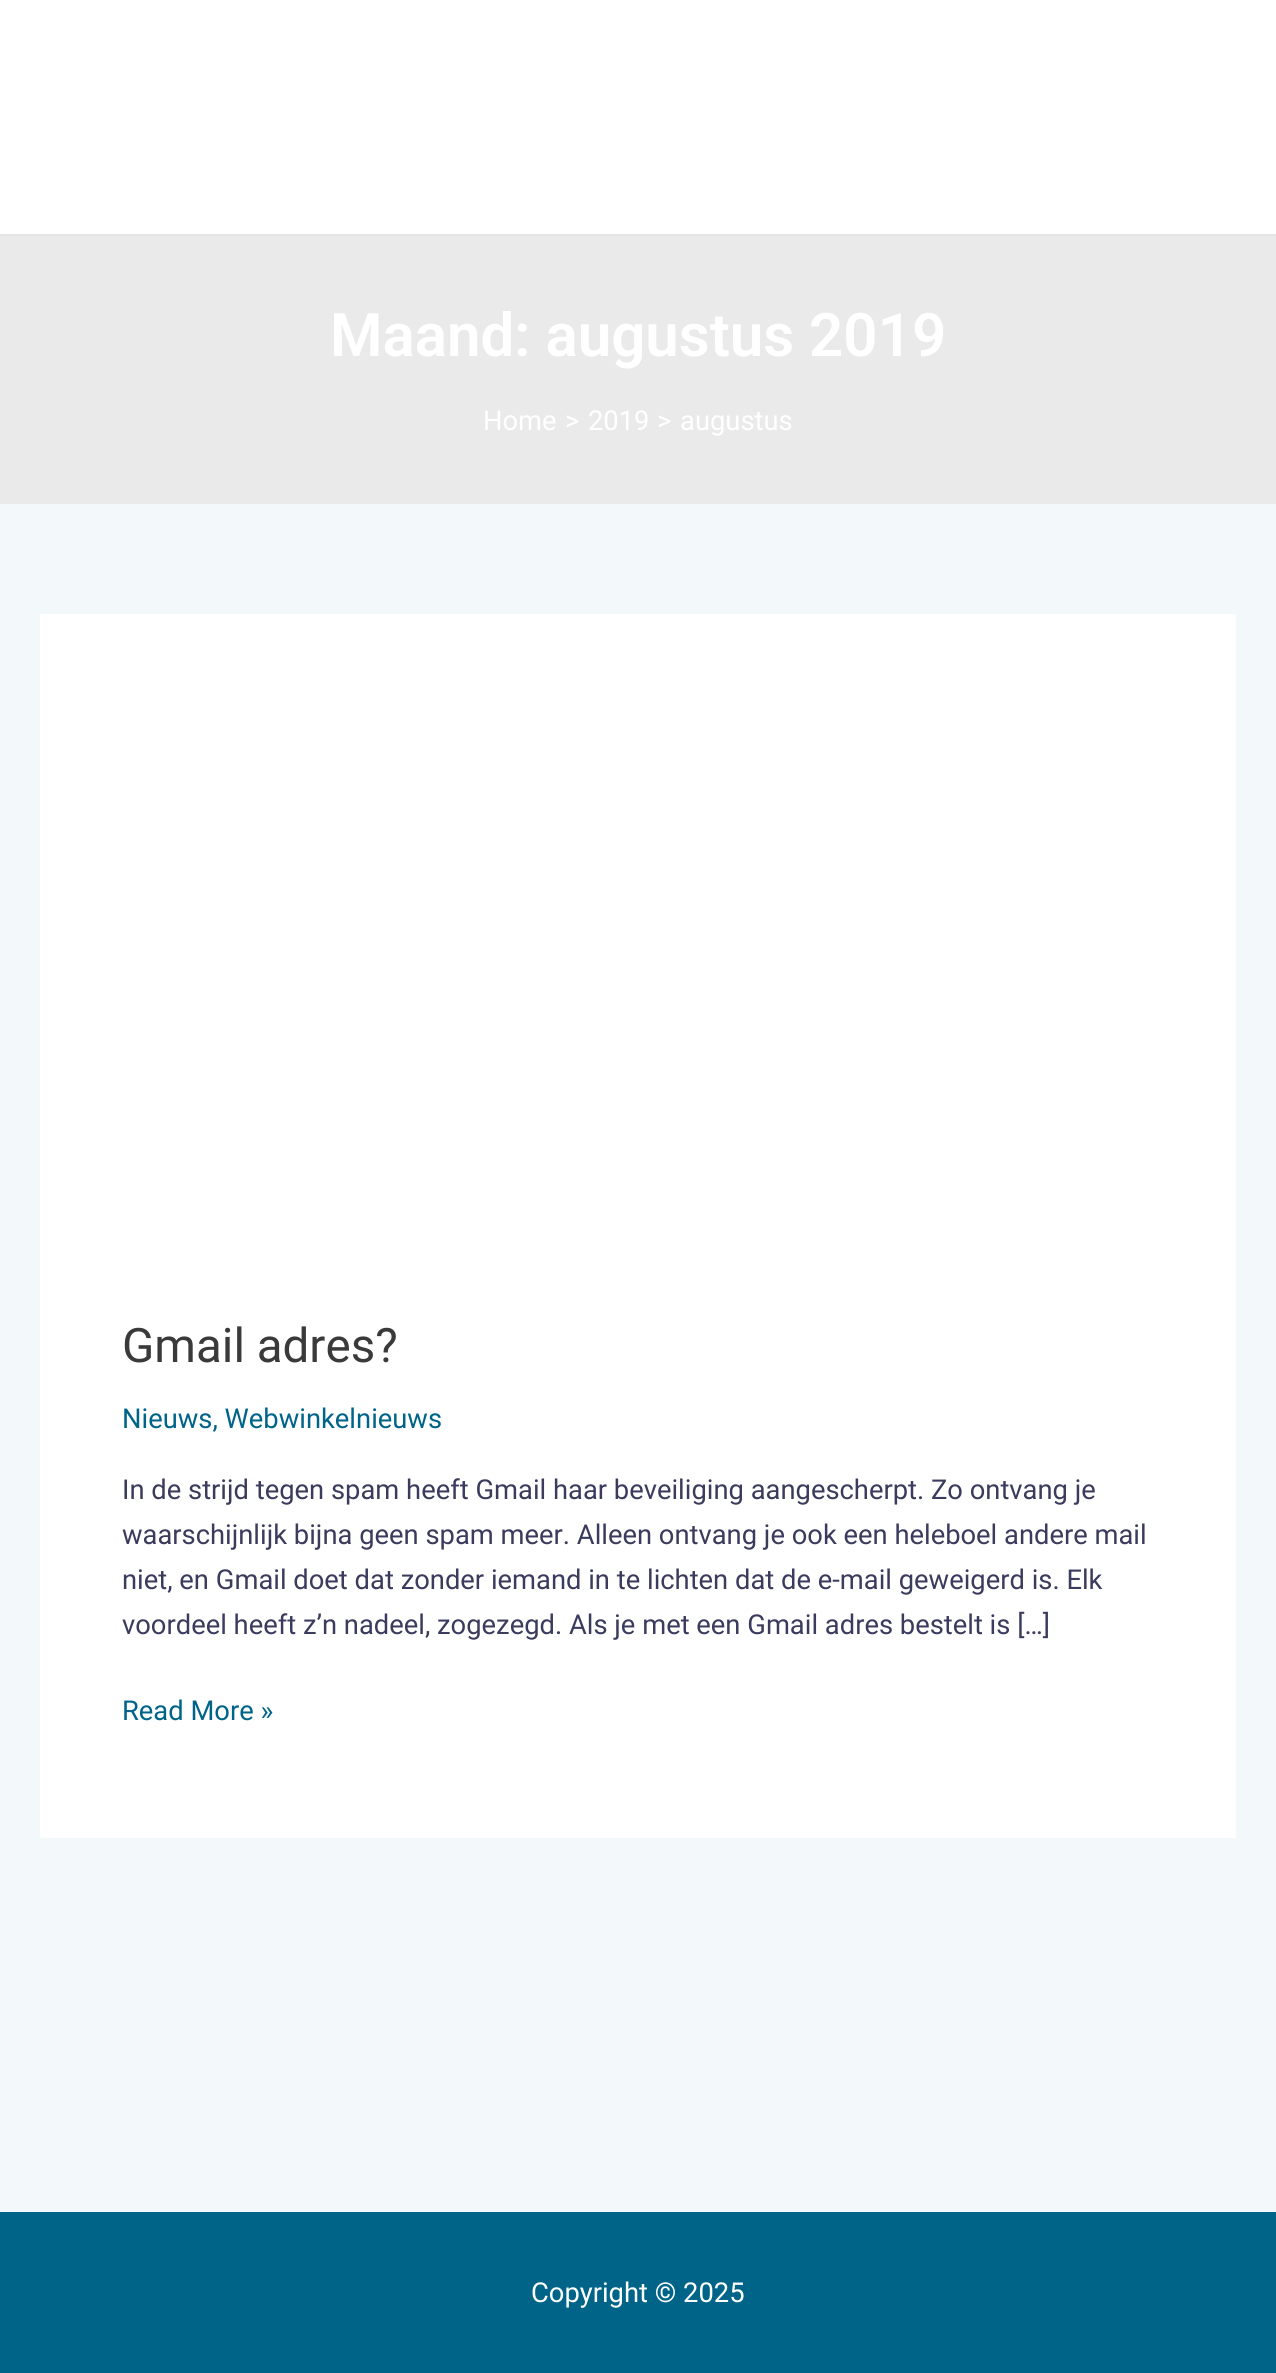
#include <cairo.h>
#include <math.h>
#include <stddef.h>

typedef struct { double x, y; const char *s; } line_t;
typedef struct { double x, y, w, h; unsigned color; } box_t;

static void ink(cairo_t *ctx, unsigned color) {
    cairo_set_source_rgb(ctx, (color >> 16) / 255.0, (color >> 8 & 255) / 255.0, (color & 255) / 255.0);
}

int main(void) {
    cairo_surface_t *surface = cairo_image_surface_create(CAIRO_FORMAT_RGB24, 1276, 2373);
    cairo_t *ctx = cairo_create(surface);
    cairo_font_options_t *options = cairo_font_options_create();
    cairo_font_options_set_hint_metrics(options, CAIRO_HINT_METRICS_OFF);
    cairo_font_options_set_hint_style(options, CAIRO_HINT_STYLE_NONE);
    cairo_set_font_options(ctx, options);
    cairo_set_miter_limit(ctx, 4);
    ink(ctx, 0xF3F8FA);
    cairo_paint(ctx);
    {
        static const box_t items[] = {
            {0, 0, 1276, 234, 0xFFFFFF},
            {0, 234, 1276, 2, 0xE5E5E5},
            {0, 236, 1276, 268, 0xEAEAEA},
        };
        for (size_t i = 0; i < sizeof items / sizeof *items; i++) {
            ink(ctx, items[i].color);
            cairo_rectangle(ctx, items[i].x, items[i].y, items[i].w, items[i].h);
            cairo_fill(ctx);
        }
    }
    cairo_select_font_face(ctx, "Roboto SemiBold", CAIRO_FONT_SLANT_NORMAL, CAIRO_FONT_WEIGHT_NORMAL);
    cairo_set_font_size(ctx, 60);
    ink(ctx, 0xFFFFFF);
    cairo_move_to(ctx, 330, 356);
    cairo_show_text(ctx, "Maand: augustus 2019");
    cairo_select_font_face(ctx, "Roboto", CAIRO_FONT_SLANT_NORMAL, CAIRO_FONT_WEIGHT_NORMAL);
    cairo_set_font_size(ctx, 27.35);
    {
        static const line_t items[] = {
            {483, 430, "Home"},
            {565, 430, ">"},
            {588, 430, "2019"},
            {657, 430, ">"},
            {680, 430, "augustus"},
        };
        for (size_t i = 0; i < sizeof items / sizeof *items; i++) {
            cairo_move_to(ctx, items[i].x, items[i].y);
            cairo_show_text(ctx, items[i].s);
        }
    }
    cairo_rectangle(ctx, 40, 614, 1196, 1224);
    cairo_fill(ctx);
    cairo_set_font_size(ctx, 47.5);
    ink(ctx, 0x3A3A3A);
    cairo_move_to(ctx, 122, 1362);
    cairo_show_text(ctx, "Gmail adres?");
    cairo_set_font_size(ctx, 27.35);
    ink(ctx, 0x006489);
    cairo_move_to(ctx, 122, 1428);
    cairo_show_text(ctx, "Nieuws, Webwinkelnieuws");
    ink(ctx, 0x3B3B5E);
    {
        static const line_t items[] = {
            {122, 1499, "In de strijd tegen spam heeft Gmail haar beveiliging aangescherpt. Zo ontvang je"},
            {122, 1544, "waarschijnlijk bijna geen spam meer. Alleen ontvang je ook een heleboel andere mail"},
            {122, 1589, "niet, en Gmail doet dat zonder iemand in te lichten dat de e-mail geweigerd is. Elk"},
            {122, 1634, "voordeel heeft z’n nadeel, zogezegd. Als je met een Gmail adres bestelt is […]"},
        };
        for (size_t i = 0; i < sizeof items / sizeof *items; i++) {
            cairo_move_to(ctx, items[i].x, items[i].y);
            cairo_show_text(ctx, items[i].s);
        }
    }
    ink(ctx, 0x006489);
    cairo_move_to(ctx, 122, 1720);
    cairo_show_text(ctx, "Read More »");
    cairo_rectangle(ctx, 0, 2212, 1276, 161);
    cairo_fill(ctx);
    ink(ctx, 0xFFFFFF);
    cairo_move_to(ctx, 531, 2302);
    cairo_show_text(ctx, "Copyright © 2025");
    cairo_surface_write_to_png(surface, "image.png");
    cairo_font_options_destroy(options);
    cairo_destroy(ctx);
    cairo_surface_destroy(surface);
    return 0;
}
